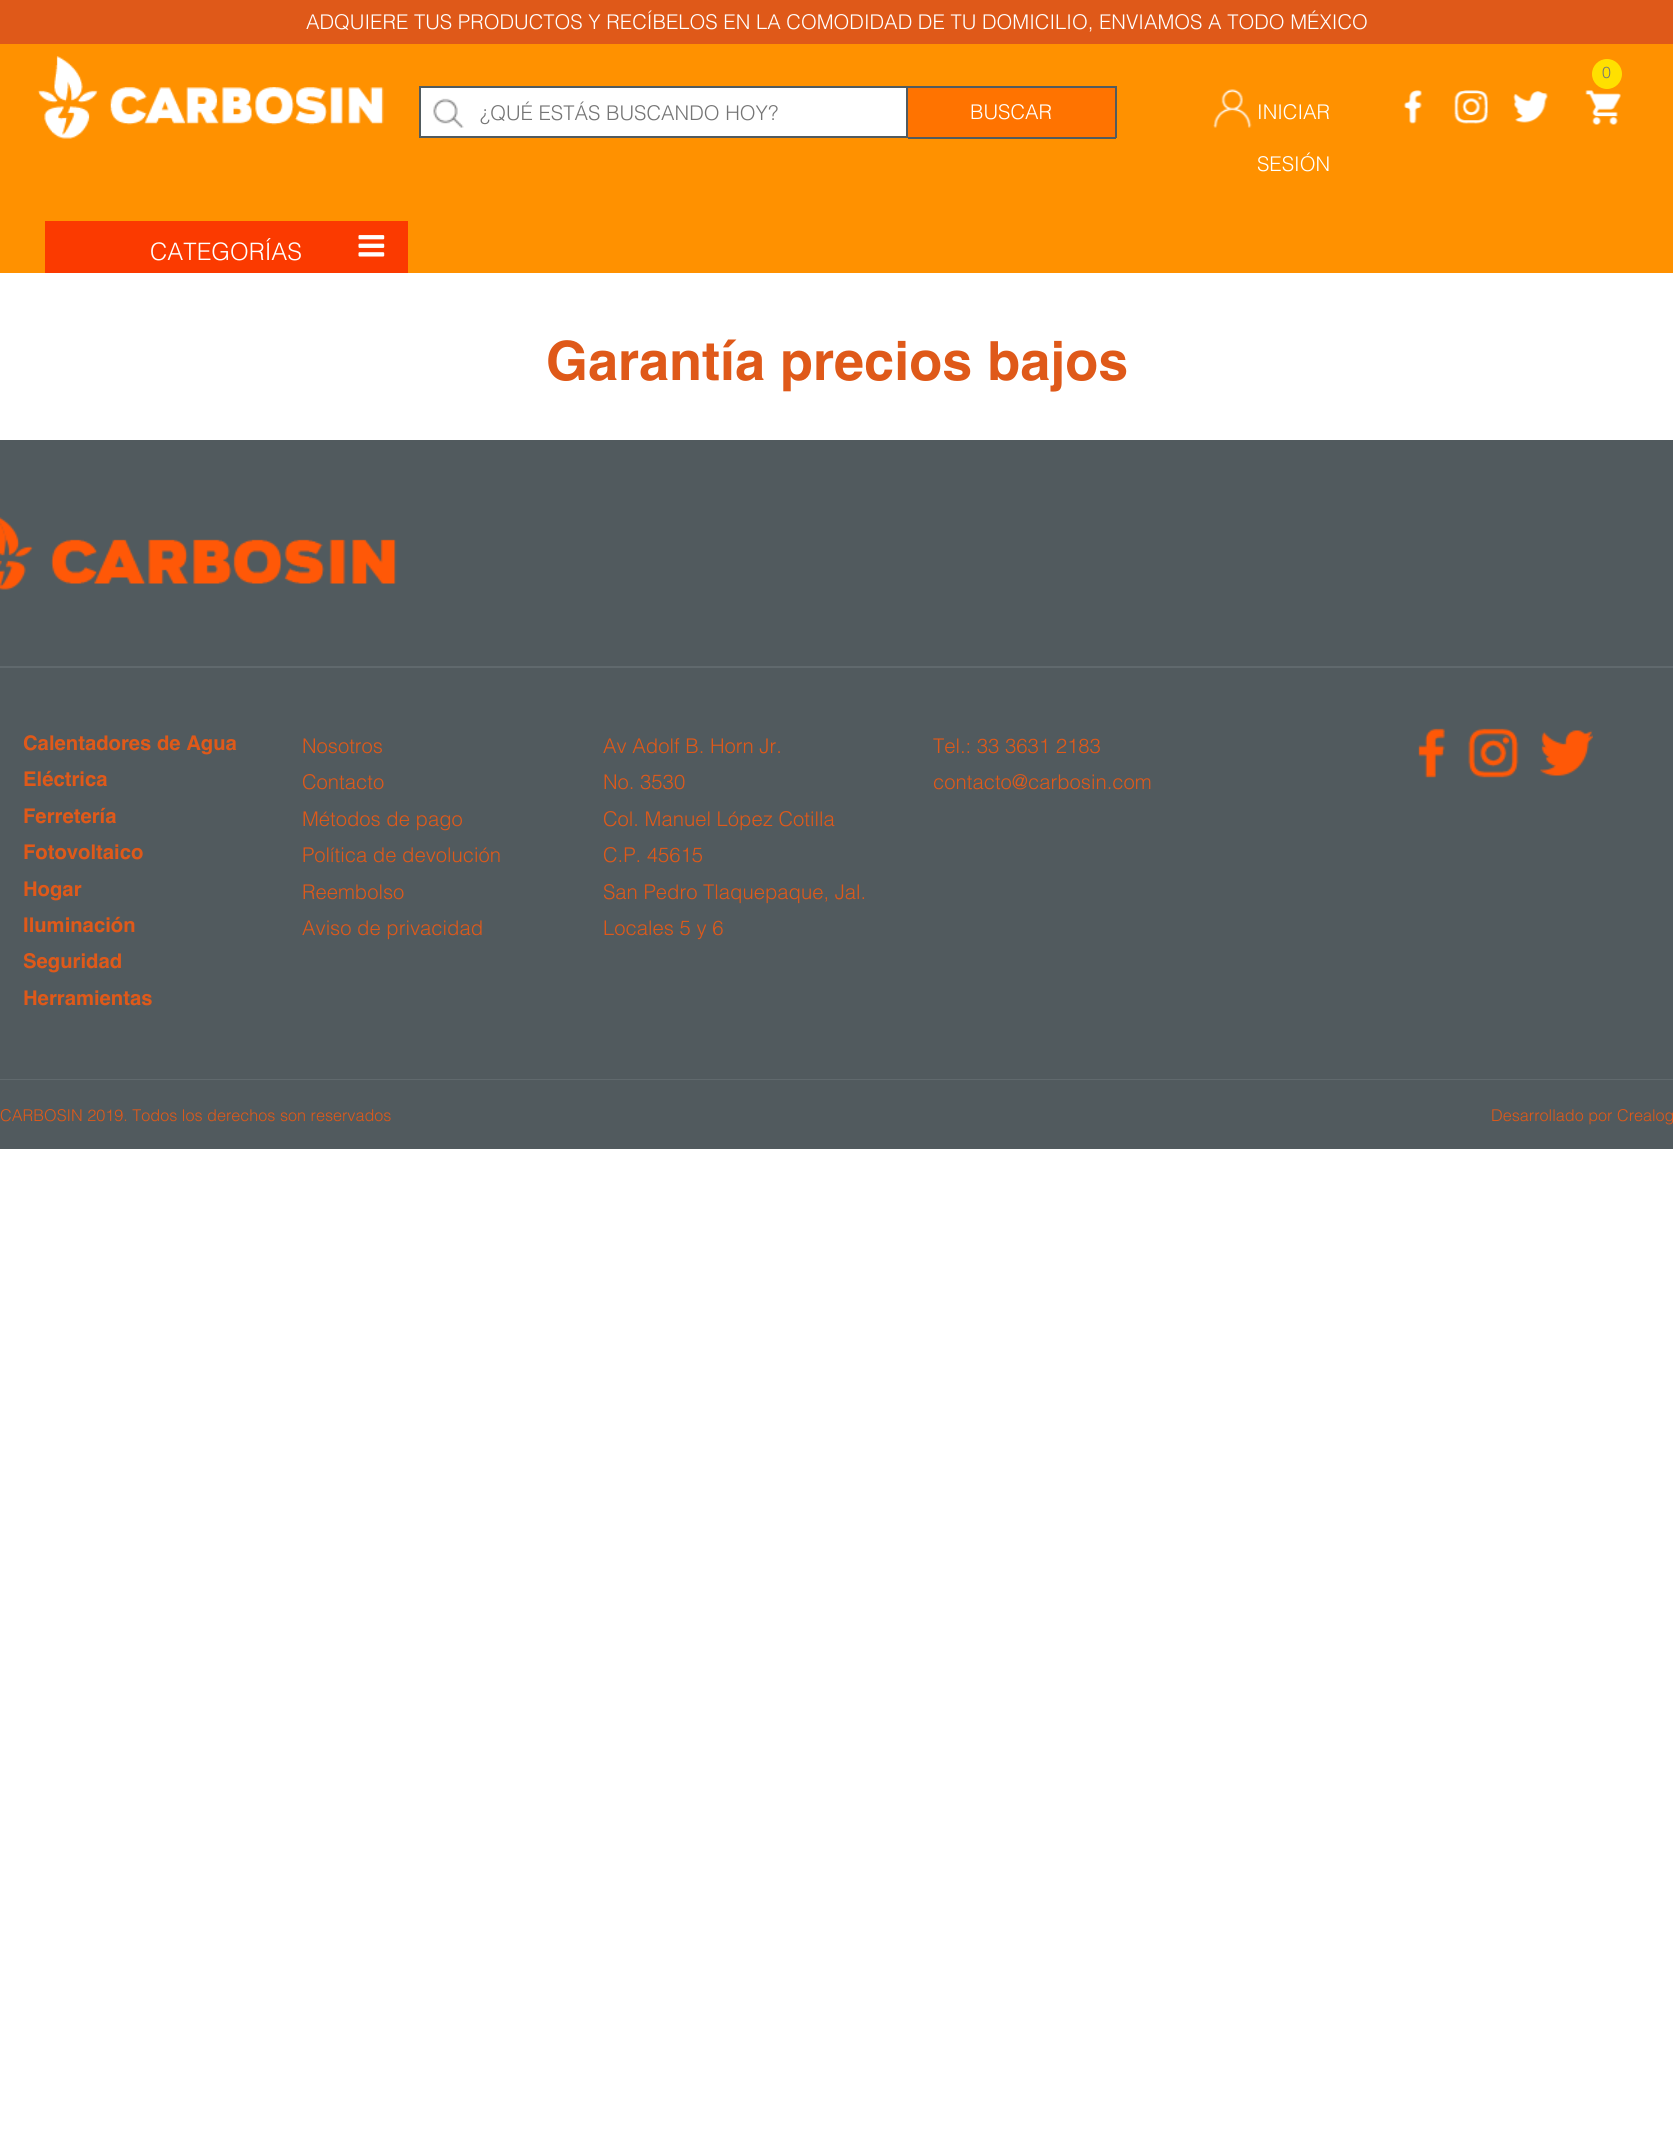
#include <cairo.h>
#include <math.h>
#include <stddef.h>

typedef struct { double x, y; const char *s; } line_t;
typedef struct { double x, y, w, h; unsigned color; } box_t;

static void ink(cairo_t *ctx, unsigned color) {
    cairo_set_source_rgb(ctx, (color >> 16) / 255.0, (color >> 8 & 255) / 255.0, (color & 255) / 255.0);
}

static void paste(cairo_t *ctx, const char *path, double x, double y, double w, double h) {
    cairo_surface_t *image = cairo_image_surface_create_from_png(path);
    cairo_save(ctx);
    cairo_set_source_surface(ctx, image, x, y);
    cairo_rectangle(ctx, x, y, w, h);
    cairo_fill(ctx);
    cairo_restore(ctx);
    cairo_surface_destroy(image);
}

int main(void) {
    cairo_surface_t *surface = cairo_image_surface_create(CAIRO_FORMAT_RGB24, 1673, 2156);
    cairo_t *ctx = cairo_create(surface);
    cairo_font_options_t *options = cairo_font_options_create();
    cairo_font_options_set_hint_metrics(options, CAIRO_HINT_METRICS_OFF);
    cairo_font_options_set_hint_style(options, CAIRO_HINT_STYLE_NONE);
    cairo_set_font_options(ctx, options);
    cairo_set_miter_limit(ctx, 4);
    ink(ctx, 0xFFFFFF);
    cairo_paint(ctx);
    ink(ctx, 0xDF5919);
    cairo_rectangle(ctx, 0, 0, 1673, 44);
    cairo_fill(ctx);
    cairo_select_font_face(ctx, "Helvetica Light", CAIRO_FONT_SLANT_NORMAL, CAIRO_FONT_WEIGHT_NORMAL);
    cairo_set_font_size(ctx, 20.25);
    ink(ctx, 0xFFFFFF);
    cairo_move_to(ctx, 306, 29);
    cairo_show_text(ctx, "ADQUIERE TUS PRODUCTOS Y RECÍBELOS EN LA COMODIDAD DE TU DOMICILIO, ENVIAMOS A TODO MÉXICO");
    ink(ctx, 0xFF9100);
    cairo_rectangle(ctx, 0, 44, 1673, 229);
    cairo_fill(ctx);
    paste(ctx, "media/1.png", 37, 56, 347, 83);
    ink(ctx, 0xFFFFFF);
    cairo_rectangle(ctx, 421, 88, 485, 48);
    cairo_fill(ctx);
    paste(ctx, "media/2.png", 433, 98, 31, 30);
    cairo_rectangle(ctx, 420, 87, 487, 50);
    ink(ctx, 0x515B5F);
    cairo_stroke(ctx);
    ink(ctx, 0x757575);
    cairo_move_to(ctx, 480, 120);
    cairo_show_text(ctx, "¿QUÉ ESTÁS BUSCANDO HOY?");
    {
        static const box_t items[] = {
            {908, 88, 207, 49, 0xFF7300},
            {908, 86, 208, 2, 0x515B5F},
            {1115, 86, 2, 52, 0x515B5F},
            {908, 137, 208, 2, 0x515B5F},
        };
        for (size_t i = 0; i < sizeof items / sizeof *items; i++) {
            ink(ctx, items[i].color);
            cairo_rectangle(ctx, items[i].x, items[i].y, items[i].w, items[i].h);
            cairo_fill(ctx);
        }
    }
    ink(ctx, 0xFFFFFF);
    cairo_move_to(ctx, 970, 119);
    cairo_show_text(ctx, "BUSCAR");
    ink(ctx, 0xFFE000);
    cairo_new_path(ctx);
    cairo_arc(ctx, 1607, 74, 15, 0, 2 * M_PI);
    cairo_fill(ctx);
    cairo_set_font_size(ctx, 16);
    ink(ctx, 0x757575);
    cairo_move_to(ctx, 1602, 78);
    cairo_show_text(ctx, "0");
    paste(ctx, "media/3.png", 1585, 90, 36, 35);
    paste(ctx, "media/4.png", 1403, 90, 19, 34);
    paste(ctx, "media/5.png", 1454, 90, 34, 34);
    paste(ctx, "media/6.png", 1513, 91, 35, 32);
    paste(ctx, "media/7.png", 1213, 89, 39, 39);
    cairo_set_font_size(ctx, 20.25);
    ink(ctx, 0xFFFFFF);
    cairo_move_to(ctx, 1257, 119);
    cairo_show_text(ctx, "INICIAR");
    cairo_move_to(ctx, 1257, 171);
    cairo_show_text(ctx, "SESIÓN");
    ink(ctx, 0xFB3A00);
    cairo_rectangle(ctx, 45, 221, 363, 52);
    cairo_fill(ctx);
    cairo_set_font_size(ctx, 24);
    ink(ctx, 0xFFFFFF);
    cairo_move_to(ctx, 150, 260);
    cairo_show_text(ctx, "CATEGORÍAS");
    paste(ctx, "media/8.png", 358, 235, 27, 22);
    cairo_select_font_face(ctx, "Helvetica", CAIRO_FONT_SLANT_NORMAL, CAIRO_FONT_WEIGHT_BOLD);
    cairo_set_font_size(ctx, 54);
    ink(ctx, 0xDF5919);
    cairo_move_to(ctx, 546, 380);
    cairo_show_text(ctx, "Garantía precios bajos");
    ink(ctx, 0x515A5E);
    cairo_rectangle(ctx, 0, 440, 1673, 226);
    cairo_fill(ctx);
    ink(ctx, 0x60696D);
    cairo_rectangle(ctx, 0, 666, 1673, 2);
    cairo_fill(ctx);
    paste(ctx, "media/9.png", 0, 517, 397, 73);
    ink(ctx, 0x515A5E);
    cairo_rectangle(ctx, 0, 668, 1673, 411);
    cairo_fill(ctx);
    ink(ctx, 0x60696D);
    cairo_rectangle(ctx, 0, 1079, 1673, 1);
    cairo_fill(ctx);
    cairo_set_font_size(ctx, 20.25);
    ink(ctx, 0xDF5919);
    {
        static const line_t items[] = {
            {23, 750, "Calentadores de Agua"},
            {23, 786, "Eléctrica"},
            {23, 823, "Ferretería"},
            {23, 859, "Fotovoltaico"},
            {23, 896, "Hogar"},
            {23, 932, "Iluminación"},
            {23, 968, "Seguridad"},
            {23, 1005, "Herramientas"},
        };
        for (size_t i = 0; i < sizeof items / sizeof *items; i++) {
            cairo_move_to(ctx, items[i].x, items[i].y);
            cairo_show_text(ctx, items[i].s);
        }
    }
    cairo_select_font_face(ctx, "Helvetica Light", CAIRO_FONT_SLANT_NORMAL, CAIRO_FONT_WEIGHT_NORMAL);
    {
        static const line_t items[] = {
            {302, 753, "Nosotros"},
            {302, 789, "Contacto"},
            {302, 826, "Métodos de pago"},
            {302, 862, "Política de devolución"},
            {302, 899, "Reembolso"},
            {302, 935, "Aviso de privacidad"},
            {603, 753, "Av Adolf B. Horn Jr."},
            {603, 789, "No. 3530"},
            {603, 826, "Col. Manuel López Cotilla"},
            {603, 862, "C.P. 45615"},
            {603, 899, "San Pedro Tlaquepaque, Jal."},
            {603, 935, "Locales 5 y 6"},
            {933, 753, "Tel.: 33 3631 2183"},
            {933, 789, "contacto@carbosin.com"},
        };
        for (size_t i = 0; i < sizeof items / sizeof *items; i++) {
            cairo_move_to(ctx, items[i].x, items[i].y);
            cairo_show_text(ctx, items[i].s);
        }
    }
    paste(ctx, "media/10.png", 1418, 728, 27, 50);
    paste(ctx, "media/11.png", 1468, 728, 51, 50);
    paste(ctx, "media/12.png", 1540, 730, 53, 46);
    ink(ctx, 0x515A5E);
    cairo_rectangle(ctx, 0, 1080, 1673, 69);
    cairo_fill(ctx);
    cairo_set_font_size(ctx, 16.2);
    ink(ctx, 0xDF5919);
    cairo_move_to(ctx, 0, 1121);
    cairo_show_text(ctx, "CARBOSIN 2019. Todos los derechos son reservados");
    cairo_move_to(ctx, 1491, 1121);
    cairo_show_text(ctx, "Desarrollado por Crealog");
    cairo_surface_write_to_png(surface, "image.png");
    cairo_font_options_destroy(options);
    cairo_destroy(ctx);
    cairo_surface_destroy(surface);
    return 0;
}
